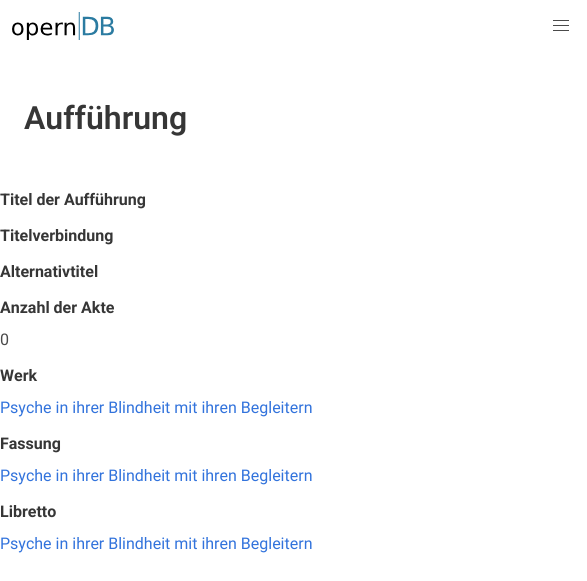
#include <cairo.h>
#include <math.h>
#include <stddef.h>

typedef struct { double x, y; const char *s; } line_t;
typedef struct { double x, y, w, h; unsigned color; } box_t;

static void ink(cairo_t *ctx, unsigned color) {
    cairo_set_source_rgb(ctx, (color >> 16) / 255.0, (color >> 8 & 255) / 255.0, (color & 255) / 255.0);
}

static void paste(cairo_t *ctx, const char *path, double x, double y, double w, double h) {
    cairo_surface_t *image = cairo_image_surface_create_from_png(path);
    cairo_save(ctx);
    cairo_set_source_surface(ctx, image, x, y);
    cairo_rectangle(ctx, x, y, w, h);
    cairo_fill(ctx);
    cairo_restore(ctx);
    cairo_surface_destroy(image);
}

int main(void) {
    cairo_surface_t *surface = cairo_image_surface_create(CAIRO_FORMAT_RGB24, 587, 581);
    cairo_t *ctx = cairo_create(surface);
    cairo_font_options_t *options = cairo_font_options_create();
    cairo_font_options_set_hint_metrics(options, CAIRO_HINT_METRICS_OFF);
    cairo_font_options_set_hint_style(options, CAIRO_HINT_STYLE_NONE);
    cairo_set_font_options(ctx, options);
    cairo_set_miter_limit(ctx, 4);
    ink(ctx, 0xFFFFFF);
    cairo_paint(ctx);
    paste(ctx, "media/1.png", 12, 12, 102, 28);
    {
        static const box_t items[] = {
            {553, 20, 16, 1, 0x4A4A4A},
            {553, 25, 16, 1, 0x4A4A4A},
            {553, 30, 16, 1, 0x4A4A4A},
        };
        for (size_t i = 0; i < sizeof items / sizeof *items; i++) {
            ink(ctx, items[i].color);
            cairo_rectangle(ctx, items[i].x, items[i].y, items[i].w, items[i].h);
            cairo_fill(ctx);
        }
    }
    cairo_select_font_face(ctx, "Roboto SemiBold", CAIRO_FONT_SLANT_NORMAL, CAIRO_FONT_WEIGHT_NORMAL);
    cairo_set_font_size(ctx, 32);
    ink(ctx, 0x363636);
    cairo_move_to(ctx, 24, 129);
    cairo_show_text(ctx, "Aufführung");
    cairo_select_font_face(ctx, "Roboto", CAIRO_FONT_SLANT_NORMAL, CAIRO_FONT_WEIGHT_BOLD);
    cairo_set_font_size(ctx, 16);
    {
        static const line_t items[] = {
            {0, 205, "Titel der Aufführung"},
            {0, 241, "Titelverbindung"},
            {0, 277, "Alternativtitel"},
            {0, 313, "Anzahl der Akte"},
        };
        for (size_t i = 0; i < sizeof items / sizeof *items; i++) {
            cairo_move_to(ctx, items[i].x, items[i].y);
            cairo_show_text(ctx, items[i].s);
        }
    }
    cairo_select_font_face(ctx, "Roboto", CAIRO_FONT_SLANT_NORMAL, CAIRO_FONT_WEIGHT_NORMAL);
    ink(ctx, 0x4A4A4A);
    cairo_move_to(ctx, 0, 345);
    cairo_show_text(ctx, "0");
    cairo_select_font_face(ctx, "Roboto", CAIRO_FONT_SLANT_NORMAL, CAIRO_FONT_WEIGHT_BOLD);
    ink(ctx, 0x363636);
    cairo_move_to(ctx, 0, 381);
    cairo_show_text(ctx, "Werk");
    cairo_select_font_face(ctx, "Roboto", CAIRO_FONT_SLANT_NORMAL, CAIRO_FONT_WEIGHT_NORMAL);
    ink(ctx, 0x3273DC);
    cairo_move_to(ctx, 0, 413);
    cairo_show_text(ctx, "Psyche in ihrer Blindheit mit ihren Begleitern");
    cairo_select_font_face(ctx, "Roboto", CAIRO_FONT_SLANT_NORMAL, CAIRO_FONT_WEIGHT_BOLD);
    ink(ctx, 0x363636);
    cairo_move_to(ctx, 0, 449);
    cairo_show_text(ctx, "Fassung");
    cairo_select_font_face(ctx, "Roboto", CAIRO_FONT_SLANT_NORMAL, CAIRO_FONT_WEIGHT_NORMAL);
    ink(ctx, 0x3273DC);
    cairo_move_to(ctx, 0, 481);
    cairo_show_text(ctx, "Psyche in ihrer Blindheit mit ihren Begleitern");
    cairo_select_font_face(ctx, "Roboto", CAIRO_FONT_SLANT_NORMAL, CAIRO_FONT_WEIGHT_BOLD);
    ink(ctx, 0x363636);
    cairo_move_to(ctx, 0, 517);
    cairo_show_text(ctx, "Libretto");
    cairo_select_font_face(ctx, "Roboto", CAIRO_FONT_SLANT_NORMAL, CAIRO_FONT_WEIGHT_NORMAL);
    ink(ctx, 0x3273DC);
    cairo_move_to(ctx, 0, 549);
    cairo_show_text(ctx, "Psyche in ihrer Blindheit mit ihren Begleitern");
    cairo_surface_write_to_png(surface, "image.png");
    cairo_font_options_destroy(options);
    cairo_destroy(ctx);
    cairo_surface_destroy(surface);
    return 0;
}
